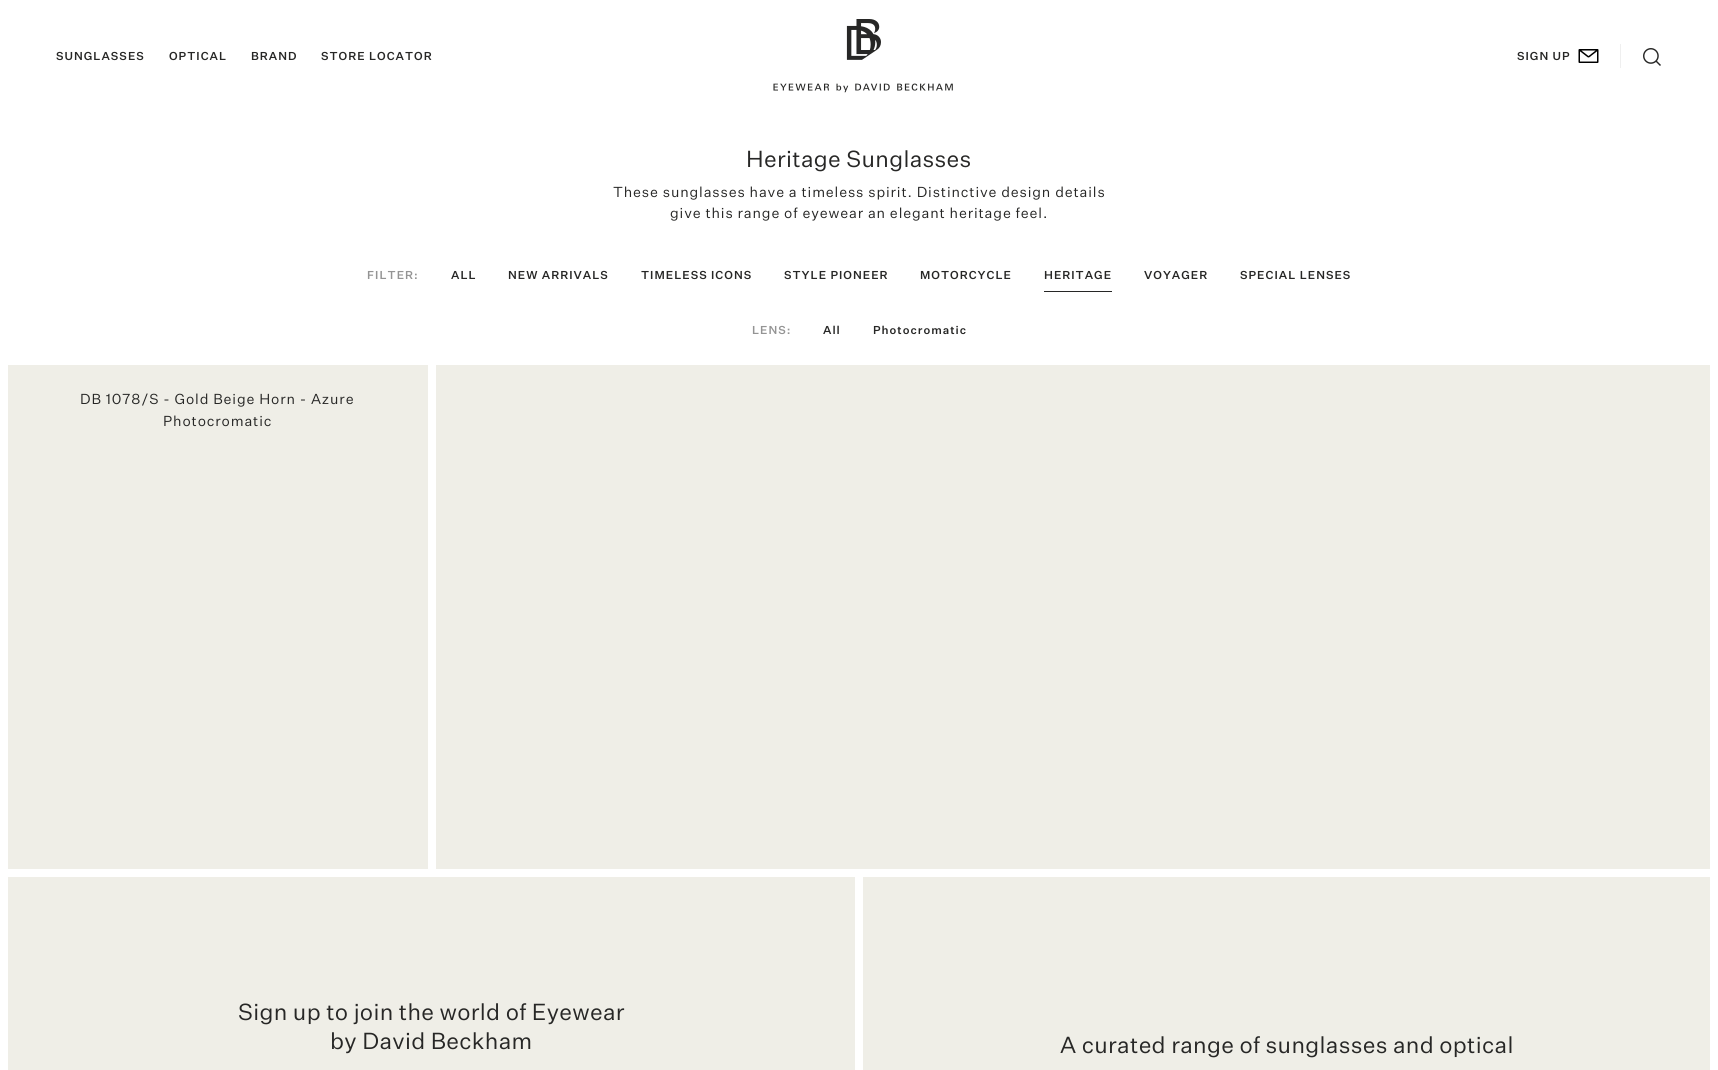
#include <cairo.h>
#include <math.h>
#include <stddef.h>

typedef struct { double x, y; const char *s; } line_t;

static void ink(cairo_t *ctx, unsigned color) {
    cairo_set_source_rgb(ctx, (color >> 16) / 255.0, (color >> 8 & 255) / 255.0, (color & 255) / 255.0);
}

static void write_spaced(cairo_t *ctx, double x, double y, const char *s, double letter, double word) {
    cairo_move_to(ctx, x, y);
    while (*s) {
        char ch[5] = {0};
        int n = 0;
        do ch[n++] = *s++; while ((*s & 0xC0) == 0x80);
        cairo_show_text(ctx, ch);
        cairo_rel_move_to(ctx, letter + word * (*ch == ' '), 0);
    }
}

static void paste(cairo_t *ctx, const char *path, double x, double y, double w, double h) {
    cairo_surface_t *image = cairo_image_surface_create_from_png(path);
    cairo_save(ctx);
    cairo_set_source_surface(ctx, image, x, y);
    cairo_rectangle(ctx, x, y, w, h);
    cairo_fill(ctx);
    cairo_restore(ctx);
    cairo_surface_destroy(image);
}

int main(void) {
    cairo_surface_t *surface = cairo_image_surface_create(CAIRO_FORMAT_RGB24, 1718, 1070);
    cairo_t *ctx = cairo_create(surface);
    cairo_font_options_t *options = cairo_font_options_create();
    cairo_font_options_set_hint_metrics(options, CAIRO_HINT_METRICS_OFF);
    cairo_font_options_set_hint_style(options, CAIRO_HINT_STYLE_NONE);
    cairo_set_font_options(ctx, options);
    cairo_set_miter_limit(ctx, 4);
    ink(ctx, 0xFFFFFF);
    cairo_paint(ctx);
    cairo_select_font_face(ctx, "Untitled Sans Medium", CAIRO_FONT_SLANT_NORMAL, CAIRO_FONT_WEIGHT_NORMAL);
    cairo_set_font_size(ctx, 11.25);
    ink(ctx, 0x272726);
    {
        static const line_t items[] = {
            {56, 60, "SUNGLASSES"},
            {169, 60, "OPTICAL"},
            {251, 60, "BRAND"},
            {321, 60, "STORE LOCATOR"},
        };
        for (size_t i = 0; i < sizeof items / sizeof *items; i++) {
            write_spaced(ctx, items[i].x, items[i].y, items[i].s, 1, 0);
        }
    }
    paste(ctx, "media/1.png", 773, 19, 180, 74);
    write_spaced(ctx, 1517, 60, "SIGN UP", 1, 0);
    ink(ctx, 0xEFEFEF);
    cairo_rectangle(ctx, 1620, 44, 1, 24);
    cairo_fill(ctx);
    paste(ctx, "media/2.png", 1578, 49, 21, 14);
    paste(ctx, "media/3.png", 1643, 48, 18, 18);
    cairo_select_font_face(ctx, "Untitled Sans", CAIRO_FONT_SLANT_NORMAL, CAIRO_FONT_WEIGHT_NORMAL);
    cairo_set_font_size(ctx, 22.75);
    ink(ctx, 0x272726);
    write_spaced(ctx, 746, 167, "Heritage Sunglasses", 0.3, 0);
    cairo_set_font_size(ctx, 14.2);
    write_spaced(ctx, 613, 197, "These sunglasses have a timeless spirit. Distinctive design details", 0.85, 0);
    write_spaced(ctx, 670, 218, "give this range of eyewear an elegant heritage feel.", 0.85, 0);
    cairo_select_font_face(ctx, "Untitled Sans Medium", CAIRO_FONT_SLANT_NORMAL, CAIRO_FONT_WEIGHT_NORMAL);
    cairo_set_font_size(ctx, 11.25);
    ink(ctx, 0x949494);
    write_spaced(ctx, 367, 279, "FILTER:", 1, 0);
    ink(ctx, 0x272726);
    {
        static const line_t items[] = {
            {451, 279, "ALL"},
            {508, 279, "NEW ARRIVALS"},
            {641, 279, "TIMELESS ICONS"},
            {784, 279, "STYLE PIONEER"},
            {920, 279, "MOTORCYCLE"},
            {1044, 279, "HERITAGE"},
        };
        for (size_t i = 0; i < sizeof items / sizeof *items; i++) {
            write_spaced(ctx, items[i].x, items[i].y, items[i].s, 1, 0);
        }
    }
    cairo_rectangle(ctx, 1044, 291, 68, 1);
    cairo_fill(ctx);
    write_spaced(ctx, 1144, 279, "VOYAGER", 1, 0);
    write_spaced(ctx, 1240, 279, "SPECIAL LENSES", 1, 0);
    ink(ctx, 0x949494);
    write_spaced(ctx, 752, 334, "LENS:", 1, 0);
    ink(ctx, 0x272726);
    write_spaced(ctx, 823, 334, "All", 1, 0);
    write_spaced(ctx, 873, 334, "Photocromatic", 1, 0);
    ink(ctx, 0xEFEEE7);
    cairo_rectangle(ctx, 8, 365, 420, 504);
    cairo_fill(ctx);
    cairo_select_font_face(ctx, "Untitled Sans", CAIRO_FONT_SLANT_NORMAL, CAIRO_FONT_WEIGHT_NORMAL);
    cairo_set_font_size(ctx, 14.2);
    ink(ctx, 0x272726);
    write_spaced(ctx, 80, 404, "DB 1078/S - Gold Beige Horn - Azure", 0.85, 0);
    write_spaced(ctx, 163, 426, "Photocromatic", 0.85, 0);
    ink(ctx, 0xEFEEE7);
    cairo_rectangle(ctx, 436, 365, 1274, 504);
    cairo_fill(ctx);
    cairo_rectangle(ctx, 8, 877, 847, 193);
    cairo_fill(ctx);
    cairo_set_font_size(ctx, 22.75);
    ink(ctx, 0x272726);
    write_spaced(ctx, 238, 1020, "Sign up to join the world of Eyewear", 0.3, 0);
    write_spaced(ctx, 330, 1049, "by David Beckham", 0.3, 0);
    ink(ctx, 0xEFEEE7);
    cairo_rectangle(ctx, 863, 877, 847, 193);
    cairo_fill(ctx);
    ink(ctx, 0x272726);
    write_spaced(ctx, 1060, 1053, "A curated range of sunglasses and optical", 0.3, 0);
    cairo_surface_write_to_png(surface, "image.png");
    cairo_font_options_destroy(options);
    cairo_destroy(ctx);
    cairo_surface_destroy(surface);
    return 0;
}
